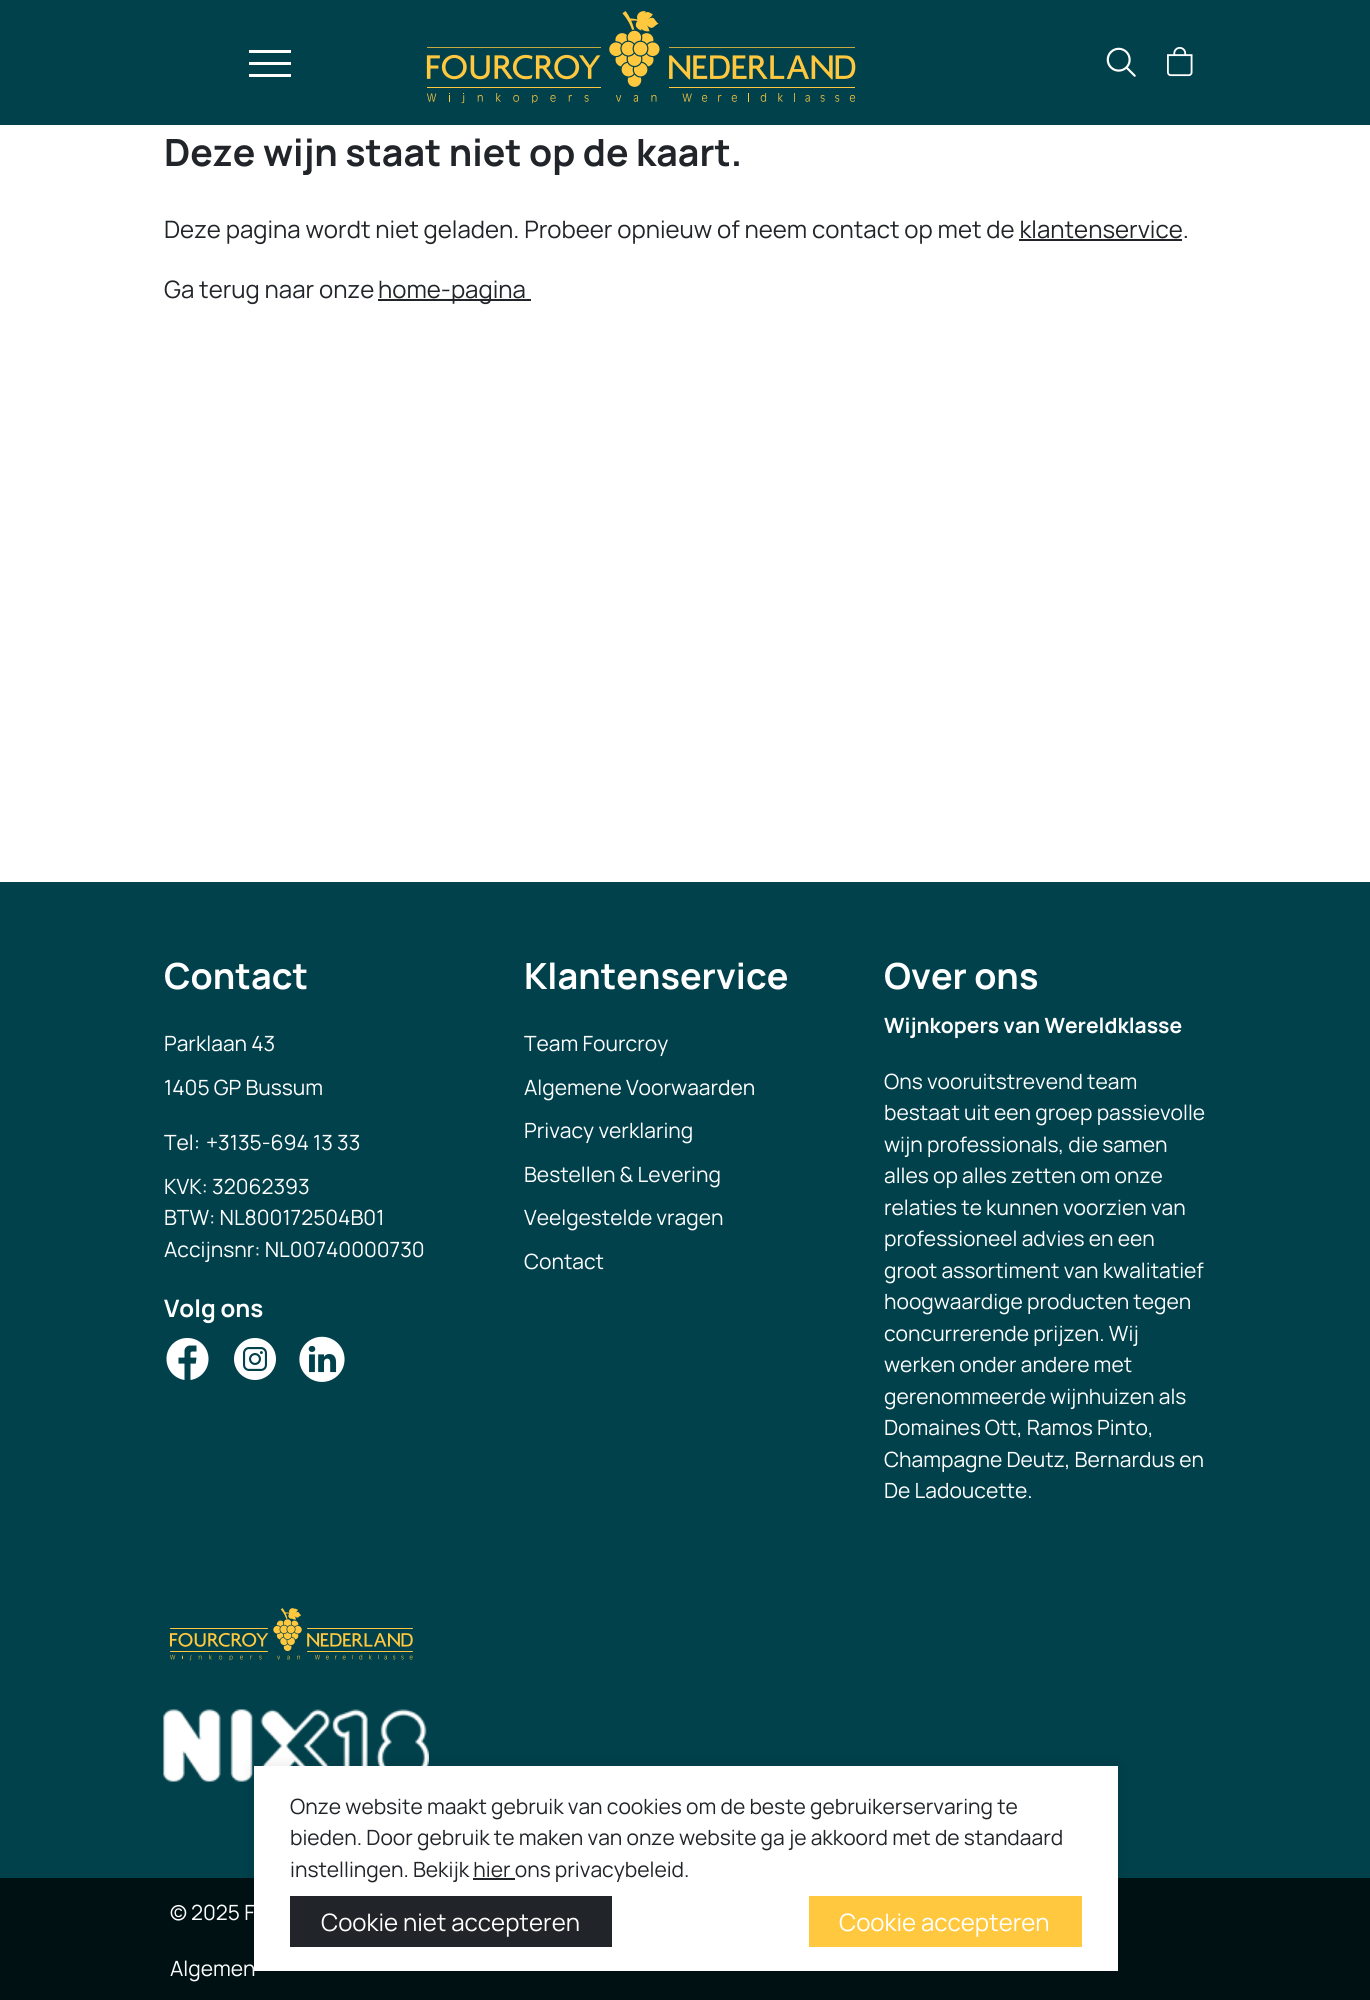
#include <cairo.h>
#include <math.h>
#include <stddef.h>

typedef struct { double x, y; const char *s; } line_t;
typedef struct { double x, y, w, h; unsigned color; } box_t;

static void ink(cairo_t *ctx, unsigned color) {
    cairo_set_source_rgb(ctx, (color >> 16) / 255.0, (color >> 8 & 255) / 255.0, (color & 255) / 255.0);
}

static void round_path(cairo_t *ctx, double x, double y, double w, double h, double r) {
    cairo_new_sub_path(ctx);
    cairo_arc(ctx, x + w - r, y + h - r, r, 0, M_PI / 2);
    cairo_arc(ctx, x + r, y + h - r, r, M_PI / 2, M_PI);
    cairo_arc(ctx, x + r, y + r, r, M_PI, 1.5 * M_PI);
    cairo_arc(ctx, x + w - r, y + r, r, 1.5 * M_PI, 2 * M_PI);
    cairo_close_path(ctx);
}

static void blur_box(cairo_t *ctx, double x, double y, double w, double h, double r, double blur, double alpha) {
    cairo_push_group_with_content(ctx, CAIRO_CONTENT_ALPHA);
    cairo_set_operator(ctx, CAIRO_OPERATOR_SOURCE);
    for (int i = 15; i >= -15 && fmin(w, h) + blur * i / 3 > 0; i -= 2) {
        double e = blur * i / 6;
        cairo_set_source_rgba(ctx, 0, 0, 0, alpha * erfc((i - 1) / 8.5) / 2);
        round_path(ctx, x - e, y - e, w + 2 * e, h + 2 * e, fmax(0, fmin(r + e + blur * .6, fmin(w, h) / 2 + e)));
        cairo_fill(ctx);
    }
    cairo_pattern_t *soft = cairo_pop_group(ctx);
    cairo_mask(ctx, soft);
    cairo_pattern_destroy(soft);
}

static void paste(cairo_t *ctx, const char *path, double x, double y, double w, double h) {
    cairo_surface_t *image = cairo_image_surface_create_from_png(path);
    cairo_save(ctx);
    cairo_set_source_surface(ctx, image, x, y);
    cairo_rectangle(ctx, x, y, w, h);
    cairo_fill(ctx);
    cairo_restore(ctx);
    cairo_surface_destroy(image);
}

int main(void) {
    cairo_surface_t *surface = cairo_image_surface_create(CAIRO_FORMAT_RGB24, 1370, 2000);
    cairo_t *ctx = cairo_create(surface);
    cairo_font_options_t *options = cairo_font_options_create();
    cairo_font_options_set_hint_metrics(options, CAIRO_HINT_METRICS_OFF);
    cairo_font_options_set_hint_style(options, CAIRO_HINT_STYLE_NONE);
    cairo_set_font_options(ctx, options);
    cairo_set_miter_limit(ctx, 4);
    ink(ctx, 0xFFFFFF);
    cairo_paint(ctx);
    {
        static const box_t items[] = {
            {0, 0, 1370, 125, 0x00414C},
            {249, 50, 42, 3, 0xFFFFFF},
            {249, 62, 42, 3, 0xFFFFFF},
            {249, 74, 42, 3, 0xFFFFFF},
        };
        for (size_t i = 0; i < sizeof items / sizeof *items; i++) {
            ink(ctx, items[i].color);
            cairo_rectangle(ctx, items[i].x, items[i].y, items[i].w, items[i].h);
            cairo_fill(ctx);
        }
    }
    paste(ctx, "media/1.png", 426, 11, 430, 93);
    paste(ctx, "media/2.png", 1106, 47, 30, 30);
    paste(ctx, "media/3.png", 1167, 47, 26, 30);
    cairo_select_font_face(ctx, "Manrope", CAIRO_FONT_SLANT_NORMAL, CAIRO_FONT_WEIGHT_BOLD);
    cairo_set_font_size(ctx, 37.5);
    ink(ctx, 0x212529);
    cairo_move_to(ctx, 164, 166);
    cairo_show_text(ctx, "Deze wijn staat niet op de kaart.");
    cairo_select_font_face(ctx, "Manrope", CAIRO_FONT_SLANT_NORMAL, CAIRO_FONT_WEIGHT_NORMAL);
    cairo_set_font_size(ctx, 24);
    cairo_move_to(ctx, 164, 238);
    cairo_show_text(ctx, "Deze pagina wordt niet geladen. Probeer opnieuw of neem contact op met de klantenservice.");
    cairo_rectangle(ctx, 1019, 239, 163, 2);
    cairo_fill(ctx);
    cairo_move_to(ctx, 164, 298);
    cairo_show_text(ctx, "Ga terug naar onze");
    cairo_rectangle(ctx, 378, 299, 153, 2);
    cairo_fill(ctx);
    cairo_move_to(ctx, 378, 298);
    cairo_show_text(ctx, "home-pagina");
    ink(ctx, 0x00414C);
    cairo_rectangle(ctx, 0, 882, 1370, 996);
    cairo_fill(ctx);
    cairo_select_font_face(ctx, "Manrope", CAIRO_FONT_SLANT_NORMAL, CAIRO_FONT_WEIGHT_BOLD);
    cairo_set_font_size(ctx, 36);
    ink(ctx, 0xFFFFFF);
    cairo_move_to(ctx, 164, 989);
    cairo_show_text(ctx, "Contact");
    cairo_select_font_face(ctx, "Manrope", CAIRO_FONT_SLANT_NORMAL, CAIRO_FONT_WEIGHT_NORMAL);
    cairo_set_font_size(ctx, 21);
    {
        static const line_t items[] = {
            {164, 1051, "Parklaan 43"},
            {164, 1095, "1405 GP Bussum"},
            {164, 1150, "Tel:"},
            {206, 1150, "+3135-694 13 33"},
            {164, 1194, "KVK: 32062393"},
            {164, 1225, "BTW: NL800172504B01"},
            {164, 1257, "Accijnsnr: NL00740000730"},
        };
        for (size_t i = 0; i < sizeof items / sizeof *items; i++) {
            cairo_move_to(ctx, items[i].x, items[i].y);
            cairo_show_text(ctx, items[i].s);
        }
    }
    cairo_select_font_face(ctx, "Manrope", CAIRO_FONT_SLANT_NORMAL, CAIRO_FONT_WEIGHT_BOLD);
    cairo_set_font_size(ctx, 24);
    cairo_move_to(ctx, 164, 1317);
    cairo_show_text(ctx, "Volg ons");
    paste(ctx, "media/4.png", 166, 1338, 43, 42);
    paste(ctx, "media/5.png", 234, 1338, 42, 42);
    paste(ctx, "media/6.png", 299, 1336, 46, 46);
    cairo_set_font_size(ctx, 36);
    cairo_move_to(ctx, 524, 989);
    cairo_show_text(ctx, "Klantenservice");
    cairo_select_font_face(ctx, "Manrope", CAIRO_FONT_SLANT_NORMAL, CAIRO_FONT_WEIGHT_NORMAL);
    cairo_set_font_size(ctx, 21);
    {
        static const line_t items[] = {
            {524, 1051, "Team Fourcroy"},
            {524, 1095, "Algemene Voorwaarden"},
            {524, 1138, "Privacy verklaring"},
            {524, 1182, "Bestellen & Levering"},
            {524, 1225, "Veelgestelde vragen"},
            {524, 1269, "Contact"},
        };
        for (size_t i = 0; i < sizeof items / sizeof *items; i++) {
            cairo_move_to(ctx, items[i].x, items[i].y);
            cairo_show_text(ctx, items[i].s);
        }
    }
    cairo_select_font_face(ctx, "Manrope", CAIRO_FONT_SLANT_NORMAL, CAIRO_FONT_WEIGHT_BOLD);
    cairo_set_font_size(ctx, 36);
    cairo_move_to(ctx, 884, 989);
    cairo_show_text(ctx, "Over ons");
    cairo_set_font_size(ctx, 21);
    cairo_move_to(ctx, 884, 1033);
    cairo_show_text(ctx, "Wijnkopers van Wereldklasse");
    cairo_select_font_face(ctx, "Manrope", CAIRO_FONT_SLANT_NORMAL, CAIRO_FONT_WEIGHT_NORMAL);
    {
        static const line_t items[] = {
            {884, 1089, "Ons vooruitstrevend team"},
            {884, 1120, "bestaat uit een groep passievolle"},
            {884, 1152, "wijn professionals, die samen"},
            {884, 1183, "alles op alles zetten om onze"},
            {884, 1215, "relaties te kunnen voorzien van"},
            {884, 1246, "professioneel advies en een"},
            {884, 1278, "groot assortiment van kwalitatief"},
            {884, 1309, "hoogwaardige producten tegen"},
            {884, 1341, "concurrerende prijzen. Wij"},
            {884, 1372, "werken onder andere met"},
            {884, 1404, "gerenommeerde wijnhuizen als"},
            {884, 1435, "Domaines Ott, Ramos Pinto,"},
            {884, 1467, "Champagne Deutz, Bernardus en"},
            {884, 1498, "De Ladoucette."},
        };
        for (size_t i = 0; i < sizeof items / sizeof *items; i++) {
            cairo_move_to(ctx, items[i].x, items[i].y);
            cairo_show_text(ctx, items[i].s);
        }
    }
    paste(ctx, "media/7.png", 169, 1608, 244, 53);
    paste(ctx, "media/8.png", 163, 1709, 266, 73);
    ink(ctx, 0x001114);
    cairo_rectangle(ctx, 0, 1878, 1370, 122);
    cairo_fill(ctx);
    ink(ctx, 0xFFFFFF);
    cairo_move_to(ctx, 170, 1920);
    cairo_show_text(ctx, "© 2025 F");
    cairo_move_to(ctx, 170, 1976);
    cairo_show_text(ctx, "Algemen");
    ink(ctx, 0x000000);
    blur_box(ctx, 254, 1766, 864, 205, 0, 7.5, 0.1);
    ink(ctx, 0xFFFFFF);
    cairo_rectangle(ctx, 254, 1766, 864, 205);
    cairo_fill(ctx);
    ink(ctx, 0x212529);
    {
        static const line_t items[] = {
            {290, 1814, "Onze website maakt gebruik van cookies om de beste gebruikerservaring te"},
            {290, 1845, "bieden. Door gebruik te maken van onze website ga je akkoord met de standaard"},
            {290, 1877, "instellingen. Bekijk hier ons privacybeleid."},
        };
        for (size_t i = 0; i < sizeof items / sizeof *items; i++) {
            cairo_move_to(ctx, items[i].x, items[i].y);
            cairo_show_text(ctx, items[i].s);
        }
    }
    cairo_rectangle(ctx, 473, 1878, 42, 2);
    cairo_fill(ctx);
    cairo_rectangle(ctx, 290, 1896, 322, 51);
    cairo_fill(ctx);
    cairo_set_font_size(ctx, 24);
    ink(ctx, 0xFFFFFF);
    cairo_move_to(ctx, 321, 1931);
    cairo_show_text(ctx, "Cookie niet accepteren");
    ink(ctx, 0xFFC83E);
    cairo_rectangle(ctx, 809, 1896, 273, 51);
    cairo_fill(ctx);
    ink(ctx, 0xFFFFFF);
    cairo_move_to(ctx, 839, 1931);
    cairo_show_text(ctx, "Cookie accepteren");
    cairo_surface_write_to_png(surface, "image.png");
    cairo_font_options_destroy(options);
    cairo_destroy(ctx);
    cairo_surface_destroy(surface);
    return 0;
}
